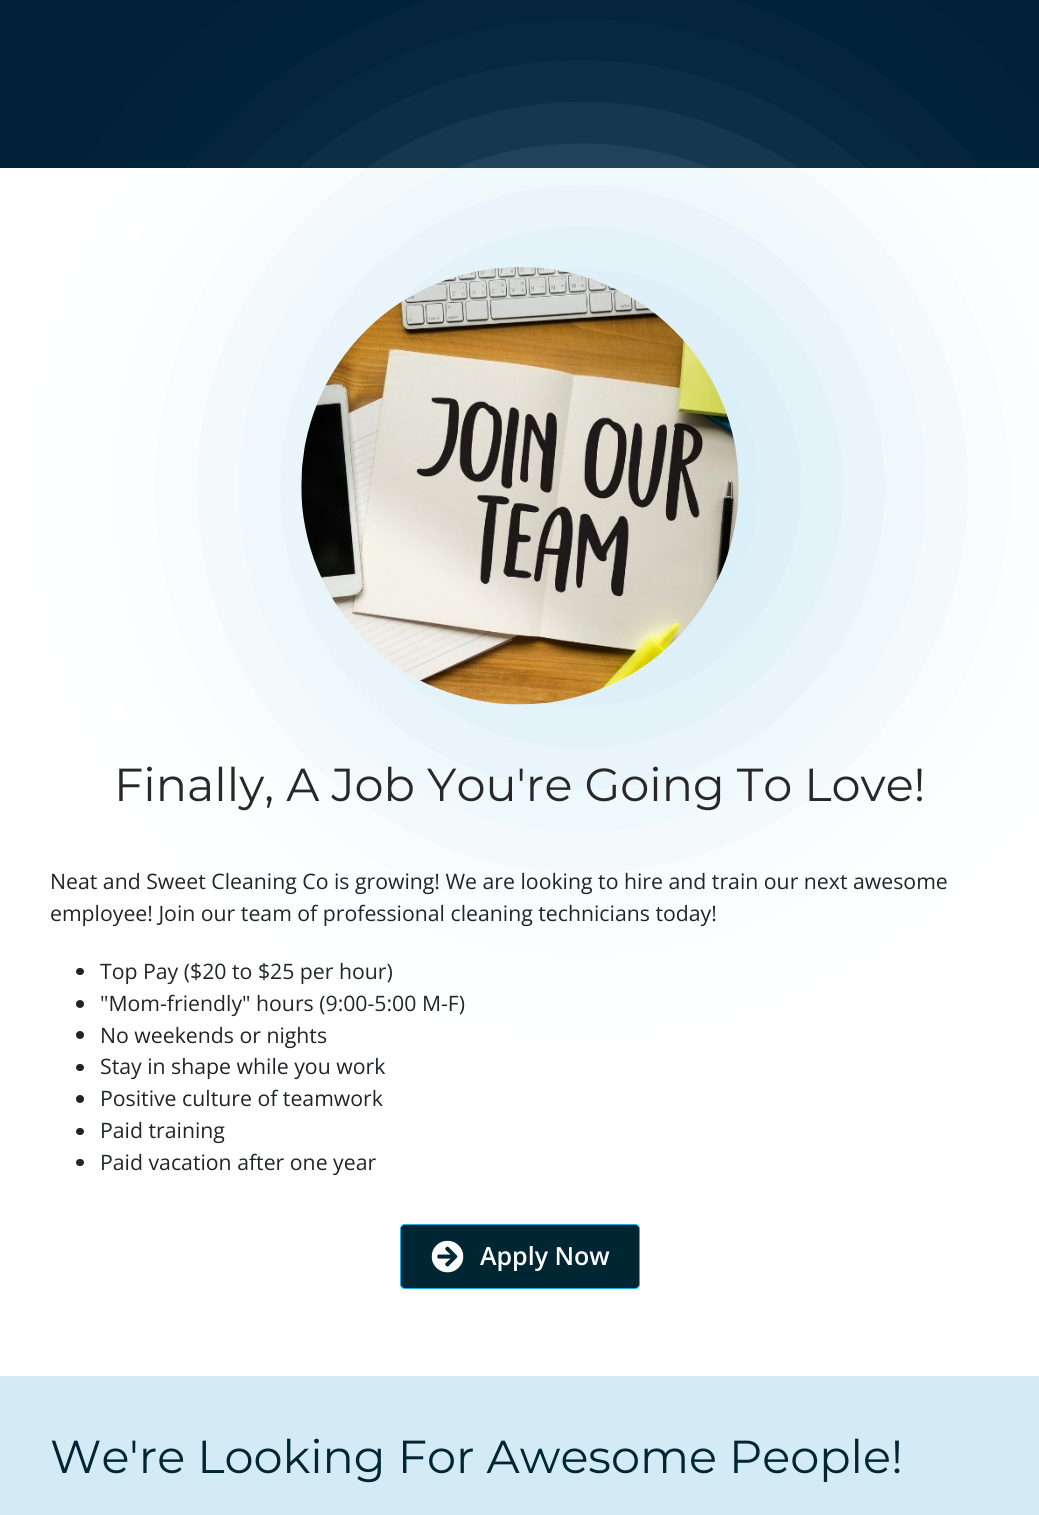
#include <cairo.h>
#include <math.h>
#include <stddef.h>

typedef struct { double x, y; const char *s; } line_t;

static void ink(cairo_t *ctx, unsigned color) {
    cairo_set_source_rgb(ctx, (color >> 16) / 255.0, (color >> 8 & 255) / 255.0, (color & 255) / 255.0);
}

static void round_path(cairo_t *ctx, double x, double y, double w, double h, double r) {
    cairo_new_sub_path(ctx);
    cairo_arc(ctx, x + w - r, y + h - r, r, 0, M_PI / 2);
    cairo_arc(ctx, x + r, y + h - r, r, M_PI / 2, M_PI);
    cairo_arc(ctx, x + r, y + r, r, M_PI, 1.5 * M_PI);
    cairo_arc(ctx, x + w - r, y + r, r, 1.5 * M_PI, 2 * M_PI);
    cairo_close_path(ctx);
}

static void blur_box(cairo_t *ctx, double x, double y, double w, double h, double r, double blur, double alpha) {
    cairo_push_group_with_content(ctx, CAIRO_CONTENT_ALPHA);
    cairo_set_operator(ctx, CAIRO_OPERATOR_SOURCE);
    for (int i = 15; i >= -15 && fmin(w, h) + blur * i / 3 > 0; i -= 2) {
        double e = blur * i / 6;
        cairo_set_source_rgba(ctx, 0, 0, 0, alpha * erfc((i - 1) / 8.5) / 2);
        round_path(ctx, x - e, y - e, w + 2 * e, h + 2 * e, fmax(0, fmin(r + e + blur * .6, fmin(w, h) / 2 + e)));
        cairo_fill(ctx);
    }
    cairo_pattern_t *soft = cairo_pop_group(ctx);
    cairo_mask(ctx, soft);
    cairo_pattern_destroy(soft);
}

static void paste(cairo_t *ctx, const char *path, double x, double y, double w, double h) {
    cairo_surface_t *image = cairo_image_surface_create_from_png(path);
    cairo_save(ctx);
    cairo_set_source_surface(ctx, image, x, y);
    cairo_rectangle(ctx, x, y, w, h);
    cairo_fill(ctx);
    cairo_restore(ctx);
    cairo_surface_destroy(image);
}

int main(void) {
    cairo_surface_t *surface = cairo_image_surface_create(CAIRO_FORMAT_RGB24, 1039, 1515);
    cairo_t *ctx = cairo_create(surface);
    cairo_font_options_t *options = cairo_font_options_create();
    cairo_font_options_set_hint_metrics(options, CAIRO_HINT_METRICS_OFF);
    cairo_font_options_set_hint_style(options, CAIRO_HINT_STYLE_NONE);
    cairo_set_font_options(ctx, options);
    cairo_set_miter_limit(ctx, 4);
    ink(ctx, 0xFFFFFF);
    cairo_paint(ctx);
    ink(ctx, 0x002138);
    cairo_rectangle(ctx, 0, 0, 1039, 168);
    cairo_fill(ctx);
    ink(ctx, 0x212529);
    round_path(ctx, 76, 968, 8, 7, 3.5);
    cairo_fill(ctx);
    cairo_arc(ctx, 80, 1004, 4, 0, 2 * M_PI);
    cairo_fill(ctx);
    cairo_arc(ctx, 80, 1035, 4, 0, 2 * M_PI);
    cairo_fill(ctx);
    round_path(ctx, 76, 1064, 8, 7, 3.5);
    cairo_fill(ctx);
    cairo_arc(ctx, 80, 1099, 4, 0, 2 * M_PI);
    cairo_fill(ctx);
    round_path(ctx, 76, 1128, 8, 7, 3.5);
    cairo_fill(ctx);
    ink(ctx, 0xA8D8EB);
    blur_box(ctx, 301, 206, 563, 563, 281.5, 125, 0.5);
    paste(ctx, "media/1.png", 301, 267, 438, 438);
    cairo_select_font_face(ctx, "Montserrat Thin", CAIRO_FONT_SLANT_NORMAL, CAIRO_FONT_WEIGHT_NORMAL);
    cairo_set_font_size(ctx, 46.25);
    ink(ctx, 0x282828);
    cairo_move_to(ctx, 114, 801);
    cairo_show_text(ctx, "Finally, A Job You're Going To Love!");
    cairo_select_font_face(ctx, "Open Sans", CAIRO_FONT_SLANT_NORMAL, CAIRO_FONT_WEIGHT_NORMAL);
    cairo_set_font_size(ctx, 21.25);
    ink(ctx, 0x212529);
    {
        static const line_t items[] = {
            {50, 889, "Neat and Sweet Cleaning Co is growing! We are looking to hire and train our next awesome"},
            {50, 921, "employee! Join our team of professional cleaning technicians today!"},
            {100, 979, "Top Pay ($20 to $25 per hour)"},
            {100, 1011, "\"Mom-friendly\" hours (9:00-5:00 M-F)"},
            {100, 1043, "No weekends or nights"},
            {100, 1074, "Stay in shape while you work"},
            {100, 1106, "Positive culture of teamwork"},
            {100, 1138, "Paid training"},
        };
        for (size_t i = 0; i < sizeof items / sizeof *items; i++) {
            cairo_move_to(ctx, items[i].x, items[i].y);
            cairo_show_text(ctx, items[i].s);
        }
    }
    round_path(ctx, 76, 1159, 8, 7, 3.5);
    cairo_fill(ctx);
    cairo_move_to(ctx, 100, 1170);
    cairo_show_text(ctx, "Paid vacation after one year");
    ink(ctx, 0x002533);
    round_path(ctx, 400.5, 1224.5, 239, 64, 4.5);
    cairo_fill_preserve(ctx);
    ink(ctx, 0x23ADE3);
    cairo_set_line_width(ctx, 1);
    cairo_stroke(ctx);
    paste(ctx, "media/2.png", 431, 1240, 33, 33);
    cairo_select_font_face(ctx, "Open Sans SemiBold", CAIRO_FONT_SLANT_NORMAL, CAIRO_FONT_WEIGHT_NORMAL);
    cairo_set_font_size(ctx, 25);
    ink(ctx, 0xFFFFFF);
    cairo_move_to(ctx, 480, 1265);
    cairo_show_text(ctx, "Apply Now");
    ink(ctx, 0xD3EBF5);
    cairo_rectangle(ctx, 0, 1376, 1039, 139);
    cairo_fill(ctx);
    cairo_select_font_face(ctx, "Montserrat Thin", CAIRO_FONT_SLANT_NORMAL, CAIRO_FONT_WEIGHT_NORMAL);
    cairo_set_font_size(ctx, 46.25);
    ink(ctx, 0x002533);
    cairo_move_to(ctx, 50, 1473);
    cairo_show_text(ctx, "We're Looking For Awesome People!");
    cairo_surface_write_to_png(surface, "image.png");
    cairo_font_options_destroy(options);
    cairo_destroy(ctx);
    cairo_surface_destroy(surface);
    return 0;
}
